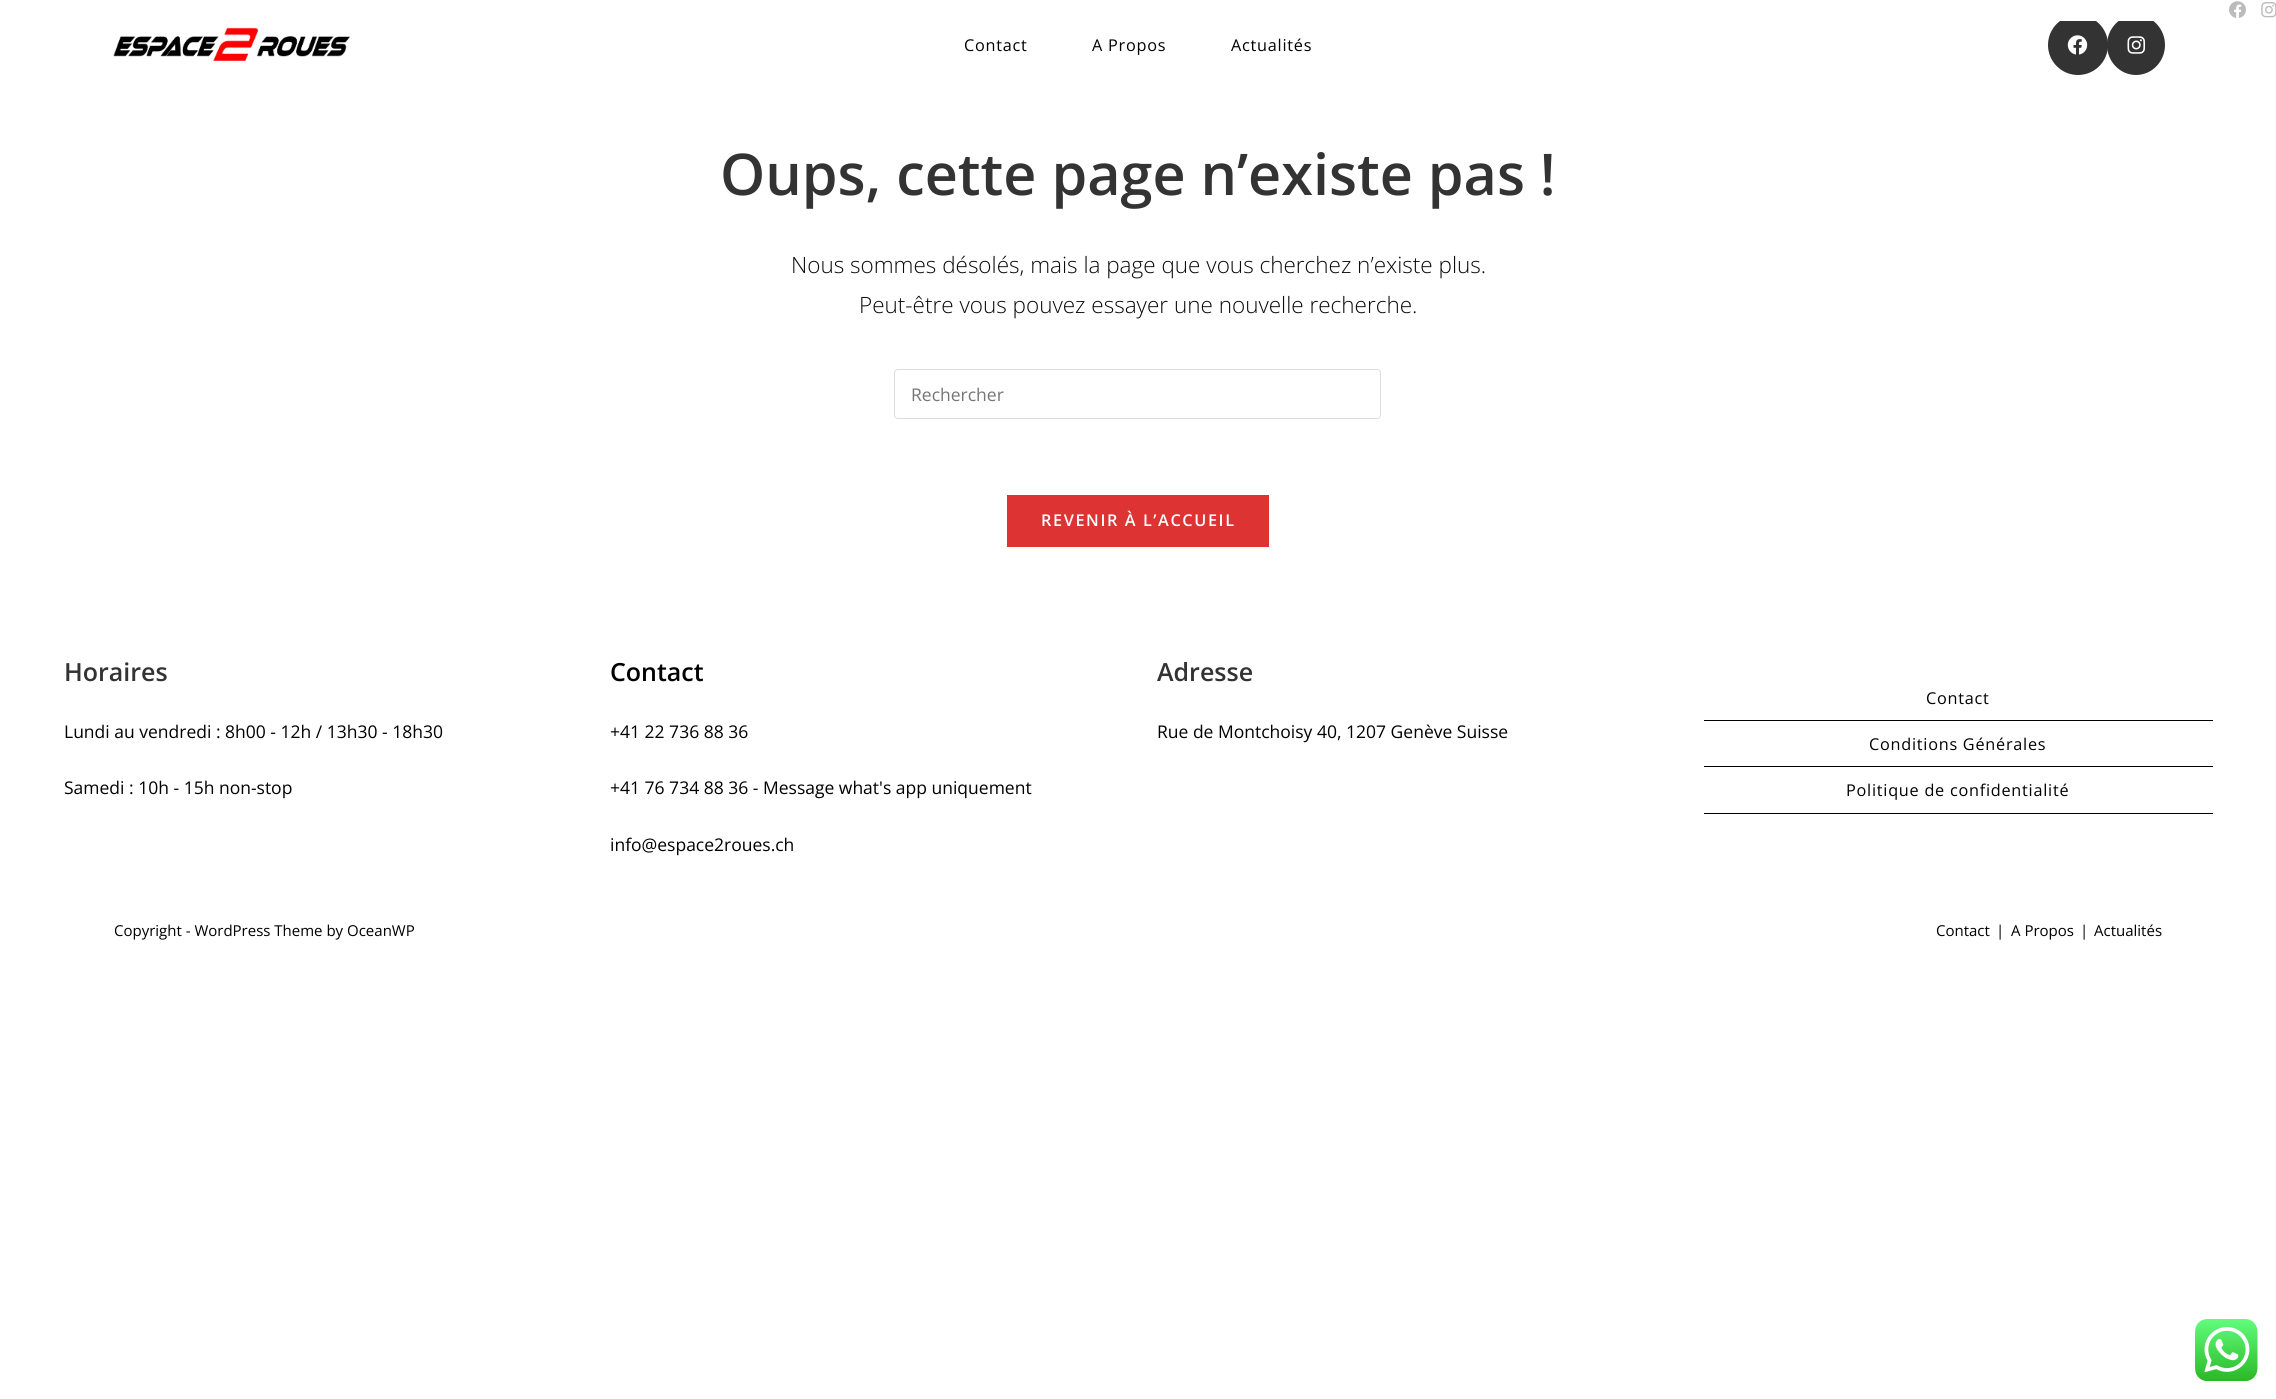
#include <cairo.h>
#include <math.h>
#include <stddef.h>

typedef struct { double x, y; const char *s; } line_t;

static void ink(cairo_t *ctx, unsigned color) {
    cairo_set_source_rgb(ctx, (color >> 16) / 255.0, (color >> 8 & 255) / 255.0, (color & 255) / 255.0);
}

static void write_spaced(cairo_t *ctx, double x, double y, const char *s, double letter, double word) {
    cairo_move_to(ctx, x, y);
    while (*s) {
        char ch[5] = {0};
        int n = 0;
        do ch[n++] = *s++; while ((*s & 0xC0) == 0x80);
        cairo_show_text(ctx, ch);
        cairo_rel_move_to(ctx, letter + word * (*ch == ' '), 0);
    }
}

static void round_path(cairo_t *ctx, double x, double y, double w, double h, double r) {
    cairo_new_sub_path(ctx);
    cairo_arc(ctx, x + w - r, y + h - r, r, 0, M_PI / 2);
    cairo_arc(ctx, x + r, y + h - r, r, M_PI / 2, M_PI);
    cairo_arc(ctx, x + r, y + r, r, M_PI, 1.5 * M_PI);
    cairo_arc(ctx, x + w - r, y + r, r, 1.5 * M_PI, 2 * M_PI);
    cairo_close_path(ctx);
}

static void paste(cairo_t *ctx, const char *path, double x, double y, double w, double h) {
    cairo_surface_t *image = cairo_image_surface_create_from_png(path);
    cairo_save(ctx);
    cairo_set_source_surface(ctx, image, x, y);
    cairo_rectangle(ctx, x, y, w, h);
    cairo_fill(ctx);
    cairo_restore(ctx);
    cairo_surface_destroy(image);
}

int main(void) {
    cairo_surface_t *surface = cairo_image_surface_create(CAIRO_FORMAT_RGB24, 2276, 1399);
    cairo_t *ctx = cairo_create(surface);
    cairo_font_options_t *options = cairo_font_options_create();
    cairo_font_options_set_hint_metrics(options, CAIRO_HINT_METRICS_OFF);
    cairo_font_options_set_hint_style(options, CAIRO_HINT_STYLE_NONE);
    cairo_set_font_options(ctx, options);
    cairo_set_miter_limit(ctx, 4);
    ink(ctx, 0xFFFFFF);
    cairo_paint(ctx);
    ink(ctx, 0x333333);
    cairo_arc(ctx, 2078, 45, 30, 0, 2 * M_PI);
    cairo_fill(ctx);
    cairo_new_path(ctx);
    cairo_move_to(ctx, 2136, 15);
    cairo_curve_to(ctx, 2152, 15, 2165, 28.5, 2165, 45);
    cairo_curve_to(ctx, 2165, 61.5, 2152, 75, 2136, 75);
    cairo_curve_to(ctx, 2120, 75, 2107, 61.5, 2107, 45);
    cairo_curve_to(ctx, 2107, 28.5, 2120, 15, 2136, 15);
    cairo_close_path(ctx);
    cairo_fill(ctx);
    ink(ctx, 0xFFFFFF);
    cairo_rectangle(ctx, 2060, 15, 94, 6);
    cairo_fill(ctx);
    paste(ctx, "media/1.png", 2229, 1, 17, 17);
    paste(ctx, "media/2.png", 2261, 2, 15, 16);
    paste(ctx, "media/3.png", 113, 27, 237, 34);
    cairo_select_font_face(ctx, "Open Sans", CAIRO_FONT_SLANT_NORMAL, CAIRO_FONT_WEIGHT_NORMAL);
    cairo_set_font_size(ctx, 16.25);
    ink(ctx, 0x000000);
    {
        static const line_t items[] = {
            {964, 51, "Contact"},
            {1092, 51, "A Propos"},
            {1231, 51, "Actualités"},
        };
        for (size_t i = 0; i < sizeof items / sizeof *items; i++) {
            write_spaced(ctx, items[i].x, items[i].y, items[i].s, 0.75, 0);
        }
    }
    paste(ctx, "media/4.png", 2067, 35, 21, 20);
    paste(ctx, "media/5.png", 2127, 36, 18, 18);
    cairo_select_font_face(ctx, "Open Sans SemiBold", CAIRO_FONT_SLANT_NORMAL, CAIRO_FONT_WEIGHT_NORMAL);
    cairo_set_font_size(ctx, 57.5);
    ink(ctx, 0x333333);
    cairo_move_to(ctx, 720, 195);
    cairo_show_text(ctx, "Oups, cette page n’existe pas !");
    cairo_select_font_face(ctx, "Open Sans Light", CAIRO_FONT_SLANT_NORMAL, CAIRO_FONT_WEIGHT_NORMAL);
    cairo_set_font_size(ctx, 22.5);
    ink(ctx, 0x0B0B0B);
    cairo_move_to(ctx, 791, 273);
    cairo_show_text(ctx, "Nous sommes désolés, mais la page que vous cherchez n’existe plus.");
    cairo_move_to(ctx, 859, 313);
    cairo_show_text(ctx, "Peut-être vous pouvez essayer une nouvelle recherche.");
    round_path(ctx, 894.5, 369.5, 486, 49, 3.5);
    ink(ctx, 0xDDDDDD);
    cairo_set_line_width(ctx, 1);
    cairo_stroke(ctx);
    cairo_select_font_face(ctx, "Open Sans", CAIRO_FONT_SLANT_NORMAL, CAIRO_FONT_WEIGHT_NORMAL);
    cairo_set_font_size(ctx, 17.5);
    ink(ctx, 0x757575);
    cairo_move_to(ctx, 911, 401);
    cairo_show_text(ctx, "Rechercher");
    ink(ctx, 0xDD3333);
    cairo_rectangle(ctx, 1007, 495, 262, 52);
    cairo_fill(ctx);
    cairo_select_font_face(ctx, "Open Sans SemiBold", CAIRO_FONT_SLANT_NORMAL, CAIRO_FONT_WEIGHT_NORMAL);
    cairo_set_font_size(ctx, 16.25);
    ink(ctx, 0xFFFFFF);
    write_spaced(ctx, 1041, 526, "REVENIR À L’ACCUEIL", 1.6, 0);
    cairo_set_font_size(ctx, 25);
    ink(ctx, 0x333333);
    cairo_move_to(ctx, 64, 681);
    cairo_show_text(ctx, "Horaires");
    cairo_select_font_face(ctx, "Open Sans", CAIRO_FONT_SLANT_NORMAL, CAIRO_FONT_WEIGHT_NORMAL);
    cairo_set_font_size(ctx, 17.5);
    ink(ctx, 0x000000);
    cairo_move_to(ctx, 64, 738);
    cairo_show_text(ctx, "Lundi au vendredi : 8h00 - 12h / 13h30 - 18h30");
    cairo_move_to(ctx, 64, 794);
    cairo_show_text(ctx, "Samedi : 10h - 15h non-stop");
    cairo_select_font_face(ctx, "Open Sans SemiBold", CAIRO_FONT_SLANT_NORMAL, CAIRO_FONT_WEIGHT_NORMAL);
    cairo_set_font_size(ctx, 25);
    cairo_move_to(ctx, 610, 681);
    cairo_show_text(ctx, "Contact");
    cairo_select_font_face(ctx, "Open Sans", CAIRO_FONT_SLANT_NORMAL, CAIRO_FONT_WEIGHT_NORMAL);
    cairo_set_font_size(ctx, 17.5);
    {
        static const line_t items[] = {
            {610, 738, "+41 22 736 88 36"},
            {610, 794, "+41 76 734 88 36 - Message what's app uniquement"},
            {610, 851, "info@espace2roues.ch"},
        };
        for (size_t i = 0; i < sizeof items / sizeof *items; i++) {
            cairo_move_to(ctx, items[i].x, items[i].y);
            cairo_show_text(ctx, items[i].s);
        }
    }
    cairo_select_font_face(ctx, "Open Sans SemiBold", CAIRO_FONT_SLANT_NORMAL, CAIRO_FONT_WEIGHT_NORMAL);
    cairo_set_font_size(ctx, 25);
    ink(ctx, 0x333333);
    cairo_move_to(ctx, 1157, 681);
    cairo_show_text(ctx, "Adresse");
    cairo_select_font_face(ctx, "Open Sans", CAIRO_FONT_SLANT_NORMAL, CAIRO_FONT_WEIGHT_NORMAL);
    cairo_set_font_size(ctx, 17.5);
    ink(ctx, 0x000000);
    cairo_move_to(ctx, 1157, 738);
    cairo_show_text(ctx, "Rue de Montchoisy 40, 1207 Genève Suisse");
    cairo_rectangle(ctx, 1704, 720, 509, 1);
    cairo_fill(ctx);
    cairo_set_font_size(ctx, 16.25);
    write_spaced(ctx, 1926, 704, "Contact", 0.75, 0);
    cairo_rectangle(ctx, 1704, 766, 509, 1);
    cairo_fill(ctx);
    write_spaced(ctx, 1869, 750, "Conditions Générales", 0.75, 0);
    cairo_rectangle(ctx, 1704, 813, 509, 1);
    cairo_fill(ctx);
    write_spaced(ctx, 1846, 796, "Politique de confidentialité", 0.75, 0);
    cairo_set_font_size(ctx, 15);
    {
        static const line_t items[] = {
            {114, 936, "Copyright - WordPress Theme by OceanWP"},
            {1936, 936, "Contact"},
            {1996, 936, "|"},
            {2011, 936, "A Propos"},
            {2080, 936, "|"},
            {2094, 936, "Actualités"},
        };
        for (size_t i = 0; i < sizeof items / sizeof *items; i++) {
            cairo_move_to(ctx, items[i].x, items[i].y);
            cairo_show_text(ctx, items[i].s);
        }
    }
    paste(ctx, "media/6.png", 2195, 1319, 63, 62);
    cairo_surface_write_to_png(surface, "image.png");
    cairo_font_options_destroy(options);
    cairo_destroy(ctx);
    cairo_surface_destroy(surface);
    return 0;
}
